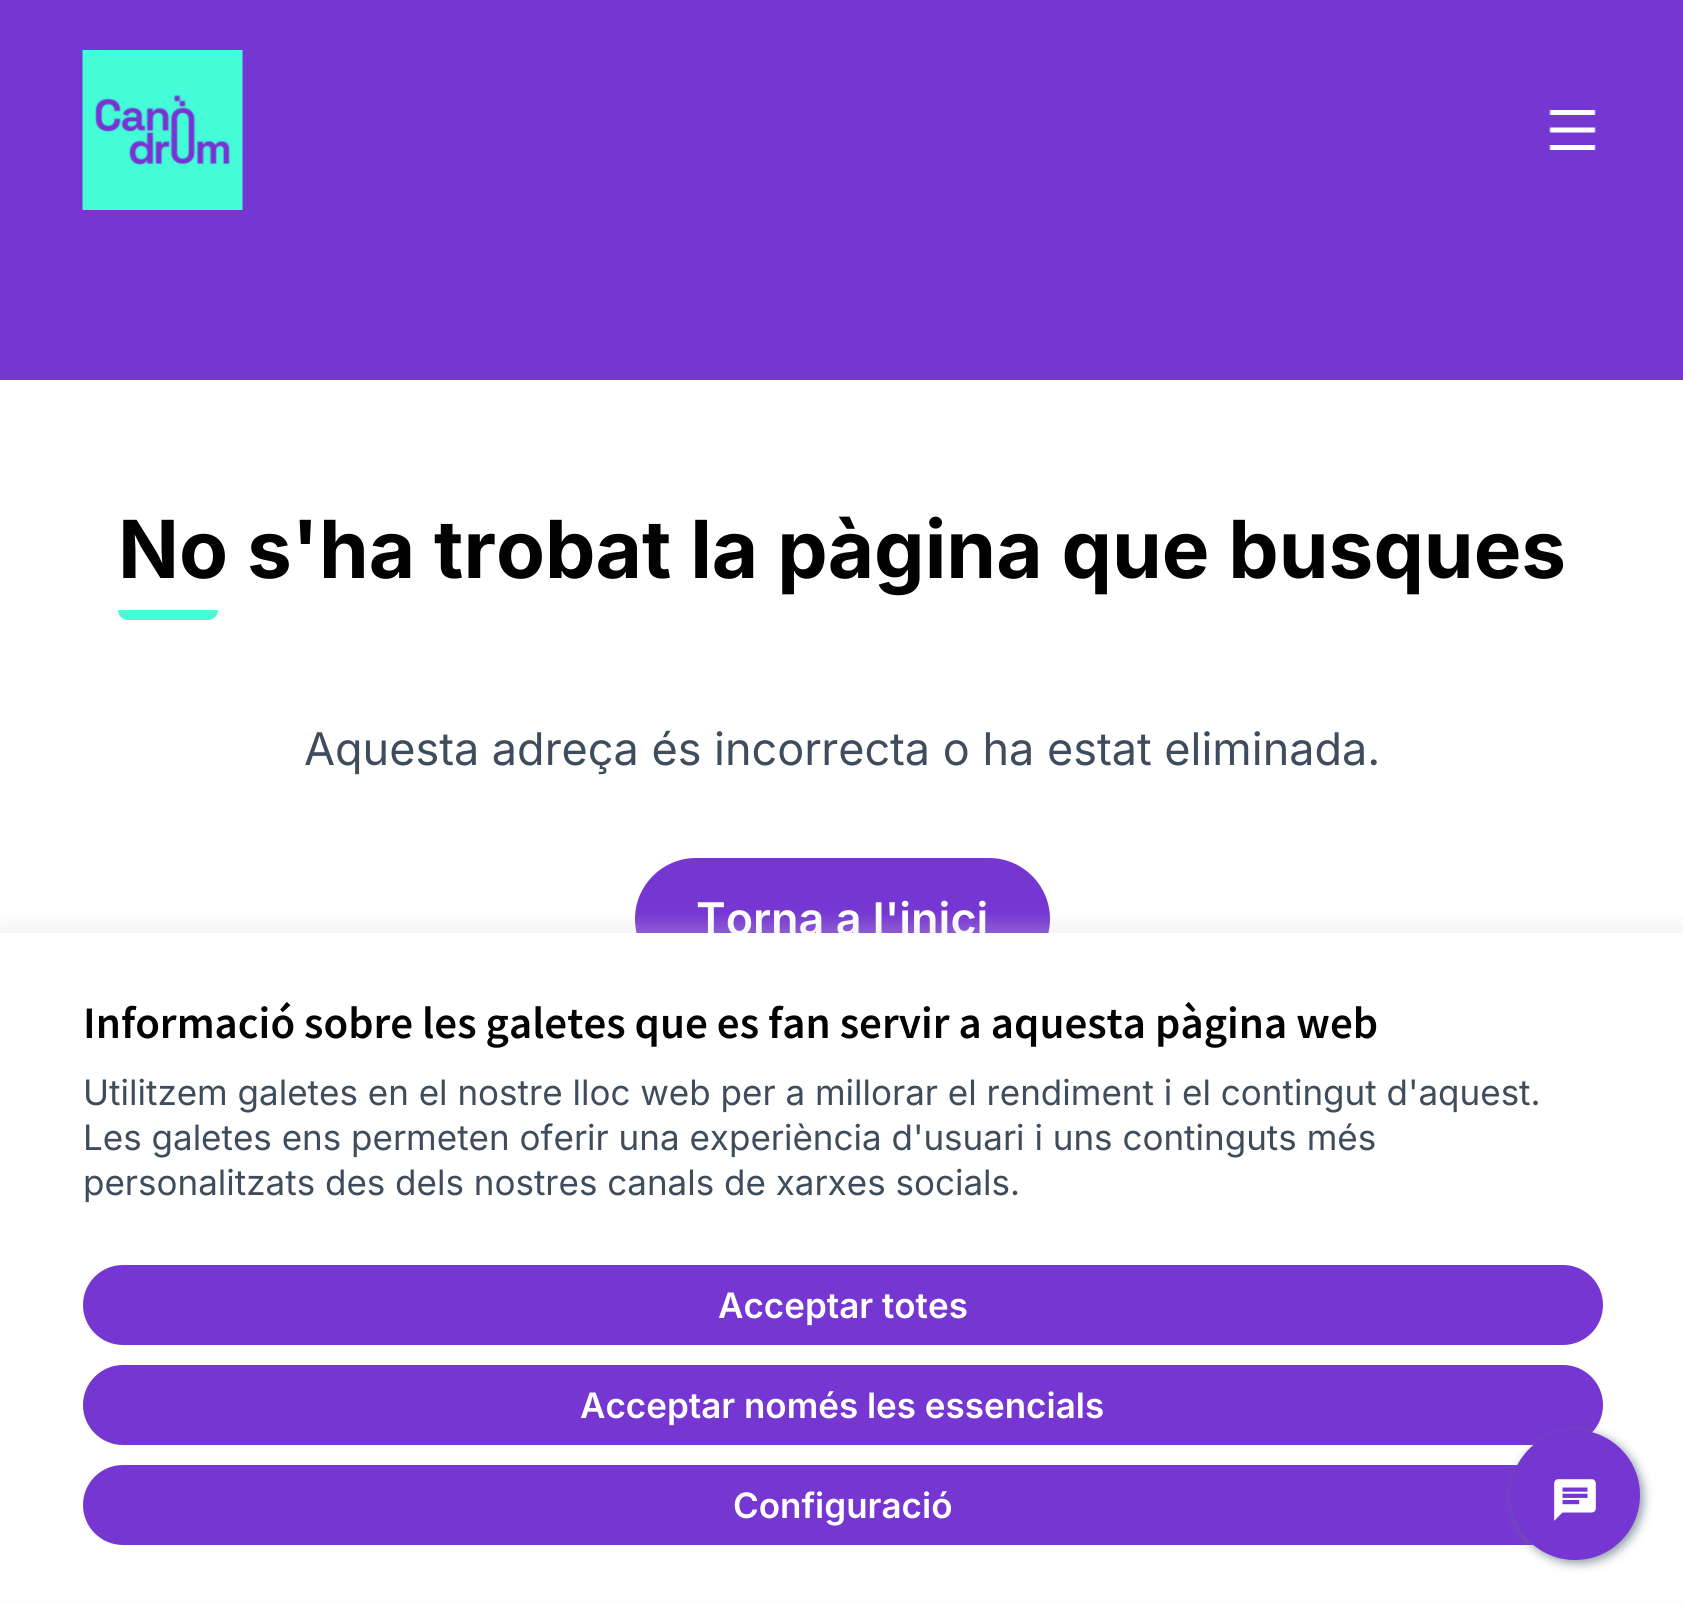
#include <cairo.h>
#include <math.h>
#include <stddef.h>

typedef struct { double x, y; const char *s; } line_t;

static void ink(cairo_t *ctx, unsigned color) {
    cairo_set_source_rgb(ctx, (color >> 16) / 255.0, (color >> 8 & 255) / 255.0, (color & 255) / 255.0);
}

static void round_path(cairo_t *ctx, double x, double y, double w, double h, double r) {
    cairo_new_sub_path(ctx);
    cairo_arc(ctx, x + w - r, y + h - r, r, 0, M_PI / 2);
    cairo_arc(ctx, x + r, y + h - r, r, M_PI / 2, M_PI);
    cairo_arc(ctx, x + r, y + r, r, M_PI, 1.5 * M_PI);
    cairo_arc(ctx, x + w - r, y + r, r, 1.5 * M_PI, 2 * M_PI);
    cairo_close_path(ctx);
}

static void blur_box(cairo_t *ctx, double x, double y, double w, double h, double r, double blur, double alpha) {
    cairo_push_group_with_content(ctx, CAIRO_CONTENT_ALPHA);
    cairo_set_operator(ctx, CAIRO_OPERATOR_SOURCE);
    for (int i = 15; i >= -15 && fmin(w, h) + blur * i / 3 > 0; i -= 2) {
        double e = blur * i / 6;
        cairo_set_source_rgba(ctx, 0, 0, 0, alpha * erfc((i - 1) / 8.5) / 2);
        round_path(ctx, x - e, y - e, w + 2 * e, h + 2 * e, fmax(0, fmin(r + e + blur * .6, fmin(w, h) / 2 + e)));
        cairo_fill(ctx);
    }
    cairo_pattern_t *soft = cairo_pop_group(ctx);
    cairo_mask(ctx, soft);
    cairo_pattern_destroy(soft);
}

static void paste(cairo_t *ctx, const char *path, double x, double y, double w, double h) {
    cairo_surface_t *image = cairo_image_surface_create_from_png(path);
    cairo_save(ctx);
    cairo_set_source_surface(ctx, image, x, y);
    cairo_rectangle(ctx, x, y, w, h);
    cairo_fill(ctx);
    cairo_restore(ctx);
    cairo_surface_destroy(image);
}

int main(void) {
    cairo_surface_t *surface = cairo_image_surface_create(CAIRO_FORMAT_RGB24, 1683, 1605);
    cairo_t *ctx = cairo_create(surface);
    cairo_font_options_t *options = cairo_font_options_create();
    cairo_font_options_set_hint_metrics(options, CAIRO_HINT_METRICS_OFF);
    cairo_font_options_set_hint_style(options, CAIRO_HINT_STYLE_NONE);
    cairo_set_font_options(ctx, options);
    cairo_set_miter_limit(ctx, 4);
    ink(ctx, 0xFFFFFF);
    cairo_paint(ctx);
    ink(ctx, 0x7636D2);
    cairo_rectangle(ctx, 0, 0, 1683, 380);
    cairo_fill(ctx);
    paste(ctx, "media/1.png", 82, 50, 161, 160);
    paste(ctx, "media/2.png", 1549, 110, 47, 40);
    cairo_select_font_face(ctx, "Inter", CAIRO_FONT_SLANT_NORMAL, CAIRO_FONT_WEIGHT_BOLD);
    cairo_set_font_size(ctx, 80);
    ink(ctx, 0x020203);
    cairo_move_to(ctx, 118, 578);
    cairo_show_text(ctx, "No s'ha trobat la pàgina que busques");
    ink(ctx, 0x46FCD6);
    cairo_new_path(ctx);
    cairo_move_to(ctx, 118, 610);
    cairo_line_to(ctx, 218, 610);
    cairo_curve_to(ctx, 218, 615.5, 213.5, 620, 208, 620);
    cairo_line_to(ctx, 128, 620);
    cairo_curve_to(ctx, 122.5, 620, 118, 615.5, 118, 610);
    cairo_close_path(ctx);
    cairo_fill(ctx);
    cairo_select_font_face(ctx, "Inter", CAIRO_FONT_SLANT_NORMAL, CAIRO_FONT_WEIGHT_NORMAL);
    cairo_set_font_size(ctx, 45);
    ink(ctx, 0x3E4C5C);
    cairo_move_to(ctx, 304, 765);
    cairo_show_text(ctx, "Aquesta adreça és incorrecta o ha estat eliminada.");
    ink(ctx, 0x7636D2);
    round_path(ctx, 635, 858, 415, 122, 61);
    cairo_fill(ctx);
    cairo_select_font_face(ctx, "Inter SemiBold", CAIRO_FONT_SLANT_NORMAL, CAIRO_FONT_WEIGHT_NORMAL);
    ink(ctx, 0xFFFFFF);
    cairo_move_to(ctx, 696, 935);
    cairo_show_text(ctx, "Torna a l'inici");
    ink(ctx, 0xD3D3D3);
    blur_box(ctx, 0, 923, 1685, 672, 0, 7.5, 0.25);
    ink(ctx, 0xFFFFFF);
    cairo_rectangle(ctx, 0, 933, 1683, 667);
    cairo_fill(ctx);
    cairo_select_font_face(ctx, "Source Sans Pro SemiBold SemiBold", CAIRO_FONT_SLANT_NORMAL, CAIRO_FONT_WEIGHT_NORMAL);
    ink(ctx, 0x020203);
    cairo_move_to(ctx, 83, 1038);
    cairo_show_text(ctx, "Informació sobre les galetes que es fan servir a aquesta pàgina web");
    cairo_select_font_face(ctx, "Inter", CAIRO_FONT_SLANT_NORMAL, CAIRO_FONT_WEIGHT_NORMAL);
    cairo_set_font_size(ctx, 35);
    ink(ctx, 0x3E4C5C);
    {
        static const line_t items[] = {
            {83, 1105, "Utilitzem galetes en el nostre lloc web per a millorar el rendiment i el contingut d'aquest."},
            {83, 1150, "Les galetes ens permeten oferir una experiència d'usuari i uns continguts més"},
            {83, 1195, "personalitzats des dels nostres canals de xarxes socials."},
        };
        for (size_t i = 0; i < sizeof items / sizeof *items; i++) {
            cairo_move_to(ctx, items[i].x, items[i].y);
            cairo_show_text(ctx, items[i].s);
        }
    }
    ink(ctx, 0x7636D2);
    round_path(ctx, 83, 1265, 1520, 80, 40);
    cairo_fill(ctx);
    cairo_select_font_face(ctx, "Inter SemiBold", CAIRO_FONT_SLANT_NORMAL, CAIRO_FONT_WEIGHT_NORMAL);
    ink(ctx, 0xFFFFFF);
    cairo_move_to(ctx, 718, 1318);
    cairo_show_text(ctx, "Acceptar totes");
    ink(ctx, 0x7636D2);
    round_path(ctx, 84.5, 1366.5, 1517, 77, 38.5);
    cairo_fill_preserve(ctx);
    cairo_set_line_width(ctx, 3);
    cairo_stroke(ctx);
    ink(ctx, 0xFFFFFF);
    cairo_move_to(ctx, 580, 1418);
    cairo_show_text(ctx, "Acceptar només les essencials");
    ink(ctx, 0x7636D2);
    round_path(ctx, 84.5, 1466.5, 1517, 77, 38.5);
    cairo_fill_preserve(ctx);
    cairo_stroke(ctx);
    ink(ctx, 0xFFFFFF);
    cairo_move_to(ctx, 733, 1518);
    cairo_show_text(ctx, "Configuració");
    ink(ctx, 0x657786);
    blur_box(ctx, 1513, 1433, 130, 130, 65, 5, 0.75);
    ink(ctx, 0x7636D2);
    cairo_arc(ctx, 1575, 1495, 65, 0, 2 * M_PI);
    cairo_fill(ctx);
    paste(ctx, "media/3.png", 1554, 1479, 42, 42);
    cairo_surface_write_to_png(surface, "image.png");
    cairo_font_options_destroy(options);
    cairo_destroy(ctx);
    cairo_surface_destroy(surface);
    return 0;
}
